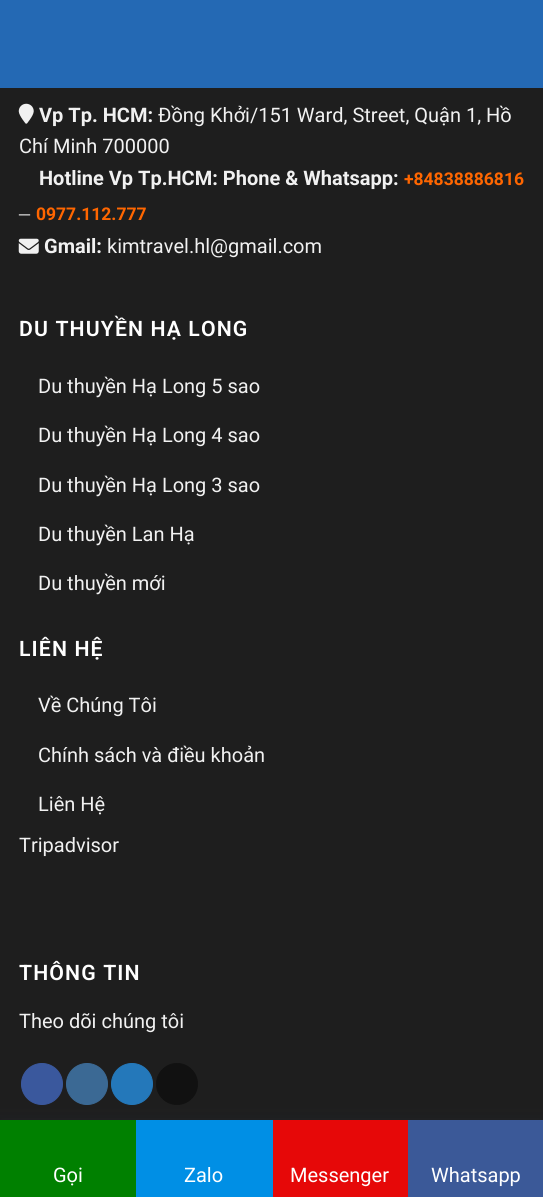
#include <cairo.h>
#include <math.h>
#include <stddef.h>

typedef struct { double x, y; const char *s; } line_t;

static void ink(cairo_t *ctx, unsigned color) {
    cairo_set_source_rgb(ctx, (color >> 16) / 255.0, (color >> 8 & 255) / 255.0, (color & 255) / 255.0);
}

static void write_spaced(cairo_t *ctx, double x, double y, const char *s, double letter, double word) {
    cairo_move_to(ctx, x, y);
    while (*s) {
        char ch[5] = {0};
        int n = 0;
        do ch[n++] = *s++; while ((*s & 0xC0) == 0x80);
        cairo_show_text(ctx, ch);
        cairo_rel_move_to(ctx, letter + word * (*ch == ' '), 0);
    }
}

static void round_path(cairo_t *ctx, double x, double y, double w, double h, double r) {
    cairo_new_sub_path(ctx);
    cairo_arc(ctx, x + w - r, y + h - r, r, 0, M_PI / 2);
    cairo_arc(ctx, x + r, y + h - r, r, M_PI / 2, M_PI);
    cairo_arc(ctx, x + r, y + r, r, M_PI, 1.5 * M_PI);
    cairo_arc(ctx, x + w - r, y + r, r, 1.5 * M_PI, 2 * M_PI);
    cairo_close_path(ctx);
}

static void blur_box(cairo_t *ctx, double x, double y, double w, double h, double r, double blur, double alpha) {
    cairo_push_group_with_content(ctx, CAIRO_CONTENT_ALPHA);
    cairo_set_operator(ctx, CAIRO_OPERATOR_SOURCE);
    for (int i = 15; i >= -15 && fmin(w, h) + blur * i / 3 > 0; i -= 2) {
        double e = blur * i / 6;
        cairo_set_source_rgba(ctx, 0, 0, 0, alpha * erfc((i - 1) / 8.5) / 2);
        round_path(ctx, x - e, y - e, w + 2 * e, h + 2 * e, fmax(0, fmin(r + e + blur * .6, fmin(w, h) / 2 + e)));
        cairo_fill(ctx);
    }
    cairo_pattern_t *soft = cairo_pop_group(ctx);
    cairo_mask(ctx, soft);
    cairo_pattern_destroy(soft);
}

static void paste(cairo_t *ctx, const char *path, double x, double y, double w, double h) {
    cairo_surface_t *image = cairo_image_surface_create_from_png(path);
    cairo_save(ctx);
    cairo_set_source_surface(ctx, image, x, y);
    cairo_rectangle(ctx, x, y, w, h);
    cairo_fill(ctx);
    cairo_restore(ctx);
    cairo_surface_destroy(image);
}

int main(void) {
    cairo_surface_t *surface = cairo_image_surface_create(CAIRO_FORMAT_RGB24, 543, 1197);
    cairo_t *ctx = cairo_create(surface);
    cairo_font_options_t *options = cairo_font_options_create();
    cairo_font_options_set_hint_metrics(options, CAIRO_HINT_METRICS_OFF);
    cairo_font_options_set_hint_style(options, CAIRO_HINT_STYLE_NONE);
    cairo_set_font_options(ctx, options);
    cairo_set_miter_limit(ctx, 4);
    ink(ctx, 0x1E1E1E);
    cairo_paint(ctx);
    ink(ctx, 0x2469B4);
    cairo_rectangle(ctx, 0, 0, 543, 88);
    cairo_fill(ctx);
    paste(ctx, "media/1.png", 18, 103, 16, 21);
    cairo_select_font_face(ctx, "Roboto", CAIRO_FONT_SLANT_NORMAL, CAIRO_FONT_WEIGHT_BOLD);
    cairo_set_font_size(ctx, 20);
    ink(ctx, 0xF1F1F1);
    cairo_move_to(ctx, 39, 122);
    cairo_show_text(ctx, "Vp Tp. HCM:");
    cairo_select_font_face(ctx, "Roboto", CAIRO_FONT_SLANT_NORMAL, CAIRO_FONT_WEIGHT_NORMAL);
    cairo_move_to(ctx, 158, 122);
    cairo_show_text(ctx, "Đồng Khởi/151 Ward, Street, Quận 1, Hồ");
    cairo_move_to(ctx, 19, 153);
    cairo_show_text(ctx, "Chí Minh 700000");
    cairo_select_font_face(ctx, "Roboto", CAIRO_FONT_SLANT_NORMAL, CAIRO_FONT_WEIGHT_BOLD);
    cairo_move_to(ctx, 39, 185);
    cairo_show_text(ctx, "Hotline Vp Tp.HCM: Phone & Whatsapp:");
    cairo_set_font_size(ctx, 17.5);
    ink(ctx, 0xFF6600);
    cairo_move_to(ctx, 404, 185);
    cairo_show_text(ctx, "+84838886816");
    cairo_select_font_face(ctx, "Liberation Serif", CAIRO_FONT_SLANT_NORMAL, CAIRO_FONT_WEIGHT_NORMAL);
    cairo_set_font_size(ctx, 22);
    ink(ctx, 0xF1F1F1);
    cairo_move_to(ctx, 19, 220);
    cairo_show_text(ctx, "–");
    cairo_select_font_face(ctx, "Roboto", CAIRO_FONT_SLANT_NORMAL, CAIRO_FONT_WEIGHT_BOLD);
    cairo_set_font_size(ctx, 17.5);
    ink(ctx, 0xFF6600);
    cairo_move_to(ctx, 36, 220);
    cairo_show_text(ctx, "0977.112.777");
    paste(ctx, "media/2.png", 18, 238, 21, 16);
    cairo_set_font_size(ctx, 20);
    ink(ctx, 0xF1F1F1);
    cairo_move_to(ctx, 44, 253);
    cairo_show_text(ctx, "Gmail:");
    cairo_select_font_face(ctx, "Roboto", CAIRO_FONT_SLANT_NORMAL, CAIRO_FONT_WEIGHT_NORMAL);
    cairo_move_to(ctx, 107, 253);
    cairo_show_text(ctx, "kimtravel.hl@gmail.com");
    cairo_select_font_face(ctx, "Roboto SemiBold", CAIRO_FONT_SLANT_NORMAL, CAIRO_FONT_WEIGHT_NORMAL);
    cairo_set_font_size(ctx, 21.25);
    ink(ctx, 0xFFFFFF);
    write_spaced(ctx, 19, 336, "DU THUYỀN HẠ LONG", 1.1, 0);
    cairo_select_font_face(ctx, "Roboto", CAIRO_FONT_SLANT_NORMAL, CAIRO_FONT_WEIGHT_NORMAL);
    cairo_set_font_size(ctx, 20);
    ink(ctx, 0xF1F1F1);
    {
        static const line_t items[] = {
            {38, 393, "Du thuyền Hạ Long 5 sao"},
            {38, 442, "Du thuyền Hạ Long 4 sao"},
            {38, 492, "Du thuyền Hạ Long 3 sao"},
            {38, 541, "Du thuyền Lan Hạ"},
            {38, 590, "Du thuyền mới"},
        };
        for (size_t i = 0; i < sizeof items / sizeof *items; i++) {
            cairo_move_to(ctx, items[i].x, items[i].y);
            cairo_show_text(ctx, items[i].s);
        }
    }
    cairo_select_font_face(ctx, "Roboto SemiBold", CAIRO_FONT_SLANT_NORMAL, CAIRO_FONT_WEIGHT_NORMAL);
    cairo_set_font_size(ctx, 21.25);
    ink(ctx, 0xFFFFFF);
    write_spaced(ctx, 19, 656, "LIÊN HỆ", 1.1, 0);
    cairo_select_font_face(ctx, "Roboto", CAIRO_FONT_SLANT_NORMAL, CAIRO_FONT_WEIGHT_NORMAL);
    cairo_set_font_size(ctx, 20);
    ink(ctx, 0xF1F1F1);
    {
        static const line_t items[] = {
            {38, 712, "Về Chúng Tôi"},
            {38, 762, "Chính sách và điều khoản"},
            {38, 811, "Liên Hệ"},
            {19, 852, "Tripadvisor"},
        };
        for (size_t i = 0; i < sizeof items / sizeof *items; i++) {
            cairo_move_to(ctx, items[i].x, items[i].y);
            cairo_show_text(ctx, items[i].s);
        }
    }
    cairo_select_font_face(ctx, "Roboto SemiBold", CAIRO_FONT_SLANT_NORMAL, CAIRO_FONT_WEIGHT_NORMAL);
    cairo_set_font_size(ctx, 21.25);
    ink(ctx, 0xFFFFFF);
    write_spaced(ctx, 19, 980, "THÔNG TIN", 1.1, 0);
    cairo_select_font_face(ctx, "Roboto", CAIRO_FONT_SLANT_NORMAL, CAIRO_FONT_WEIGHT_NORMAL);
    cairo_set_font_size(ctx, 20);
    ink(ctx, 0xF1F1F1);
    cairo_move_to(ctx, 19, 1028);
    cairo_show_text(ctx, "Theo dõi chúng tôi");
    ink(ctx, 0x3A589D);
    cairo_new_path(ctx);
    cairo_arc(ctx, 42, 1084, 20.5, 0, 2 * M_PI);
    cairo_fill_preserve(ctx);
    cairo_set_line_width(ctx, 1);
    cairo_stroke(ctx);
    ink(ctx, 0x3B6994);
    cairo_arc(ctx, 87, 1084, 20.5, 0, 2 * M_PI);
    cairo_fill_preserve(ctx);
    cairo_stroke(ctx);
    ink(ctx, 0x2478BA);
    cairo_arc(ctx, 132, 1084, 20.5, 0, 2 * M_PI);
    cairo_fill_preserve(ctx);
    cairo_stroke(ctx);
    ink(ctx, 0x111111);
    cairo_arc(ctx, 177, 1084, 20.5, 0, 2 * M_PI);
    cairo_fill_preserve(ctx);
    cairo_stroke(ctx);
    ink(ctx, 0x2C3349);
    blur_box(ctx, 0, 1130, 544, 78, 0, 10, 0.6);
    ink(ctx, 0x008000);
    cairo_rectangle(ctx, 0, 1120, 136, 77);
    cairo_fill(ctx);
    ink(ctx, 0xFFFFFF);
    cairo_move_to(ctx, 53, 1182);
    cairo_show_text(ctx, "Gọi");
    ink(ctx, 0x008FE5);
    cairo_rectangle(ctx, 136, 1120, 137, 77);
    cairo_fill(ctx);
    ink(ctx, 0xFFFFFF);
    cairo_move_to(ctx, 184, 1182);
    cairo_show_text(ctx, "Zalo");
    ink(ctx, 0xE60808);
    cairo_rectangle(ctx, 273, 1120, 135, 77);
    cairo_fill(ctx);
    ink(ctx, 0xFFFFFF);
    cairo_move_to(ctx, 290, 1182);
    cairo_show_text(ctx, "Messenger");
    ink(ctx, 0x3B5998);
    cairo_rectangle(ctx, 408, 1120, 135, 77);
    cairo_fill(ctx);
    ink(ctx, 0xFFFFFF);
    cairo_move_to(ctx, 431, 1182);
    cairo_show_text(ctx, "Whatsapp");
    cairo_surface_write_to_png(surface, "image.png");
    cairo_font_options_destroy(options);
    cairo_destroy(ctx);
    cairo_surface_destroy(surface);
    return 0;
}
